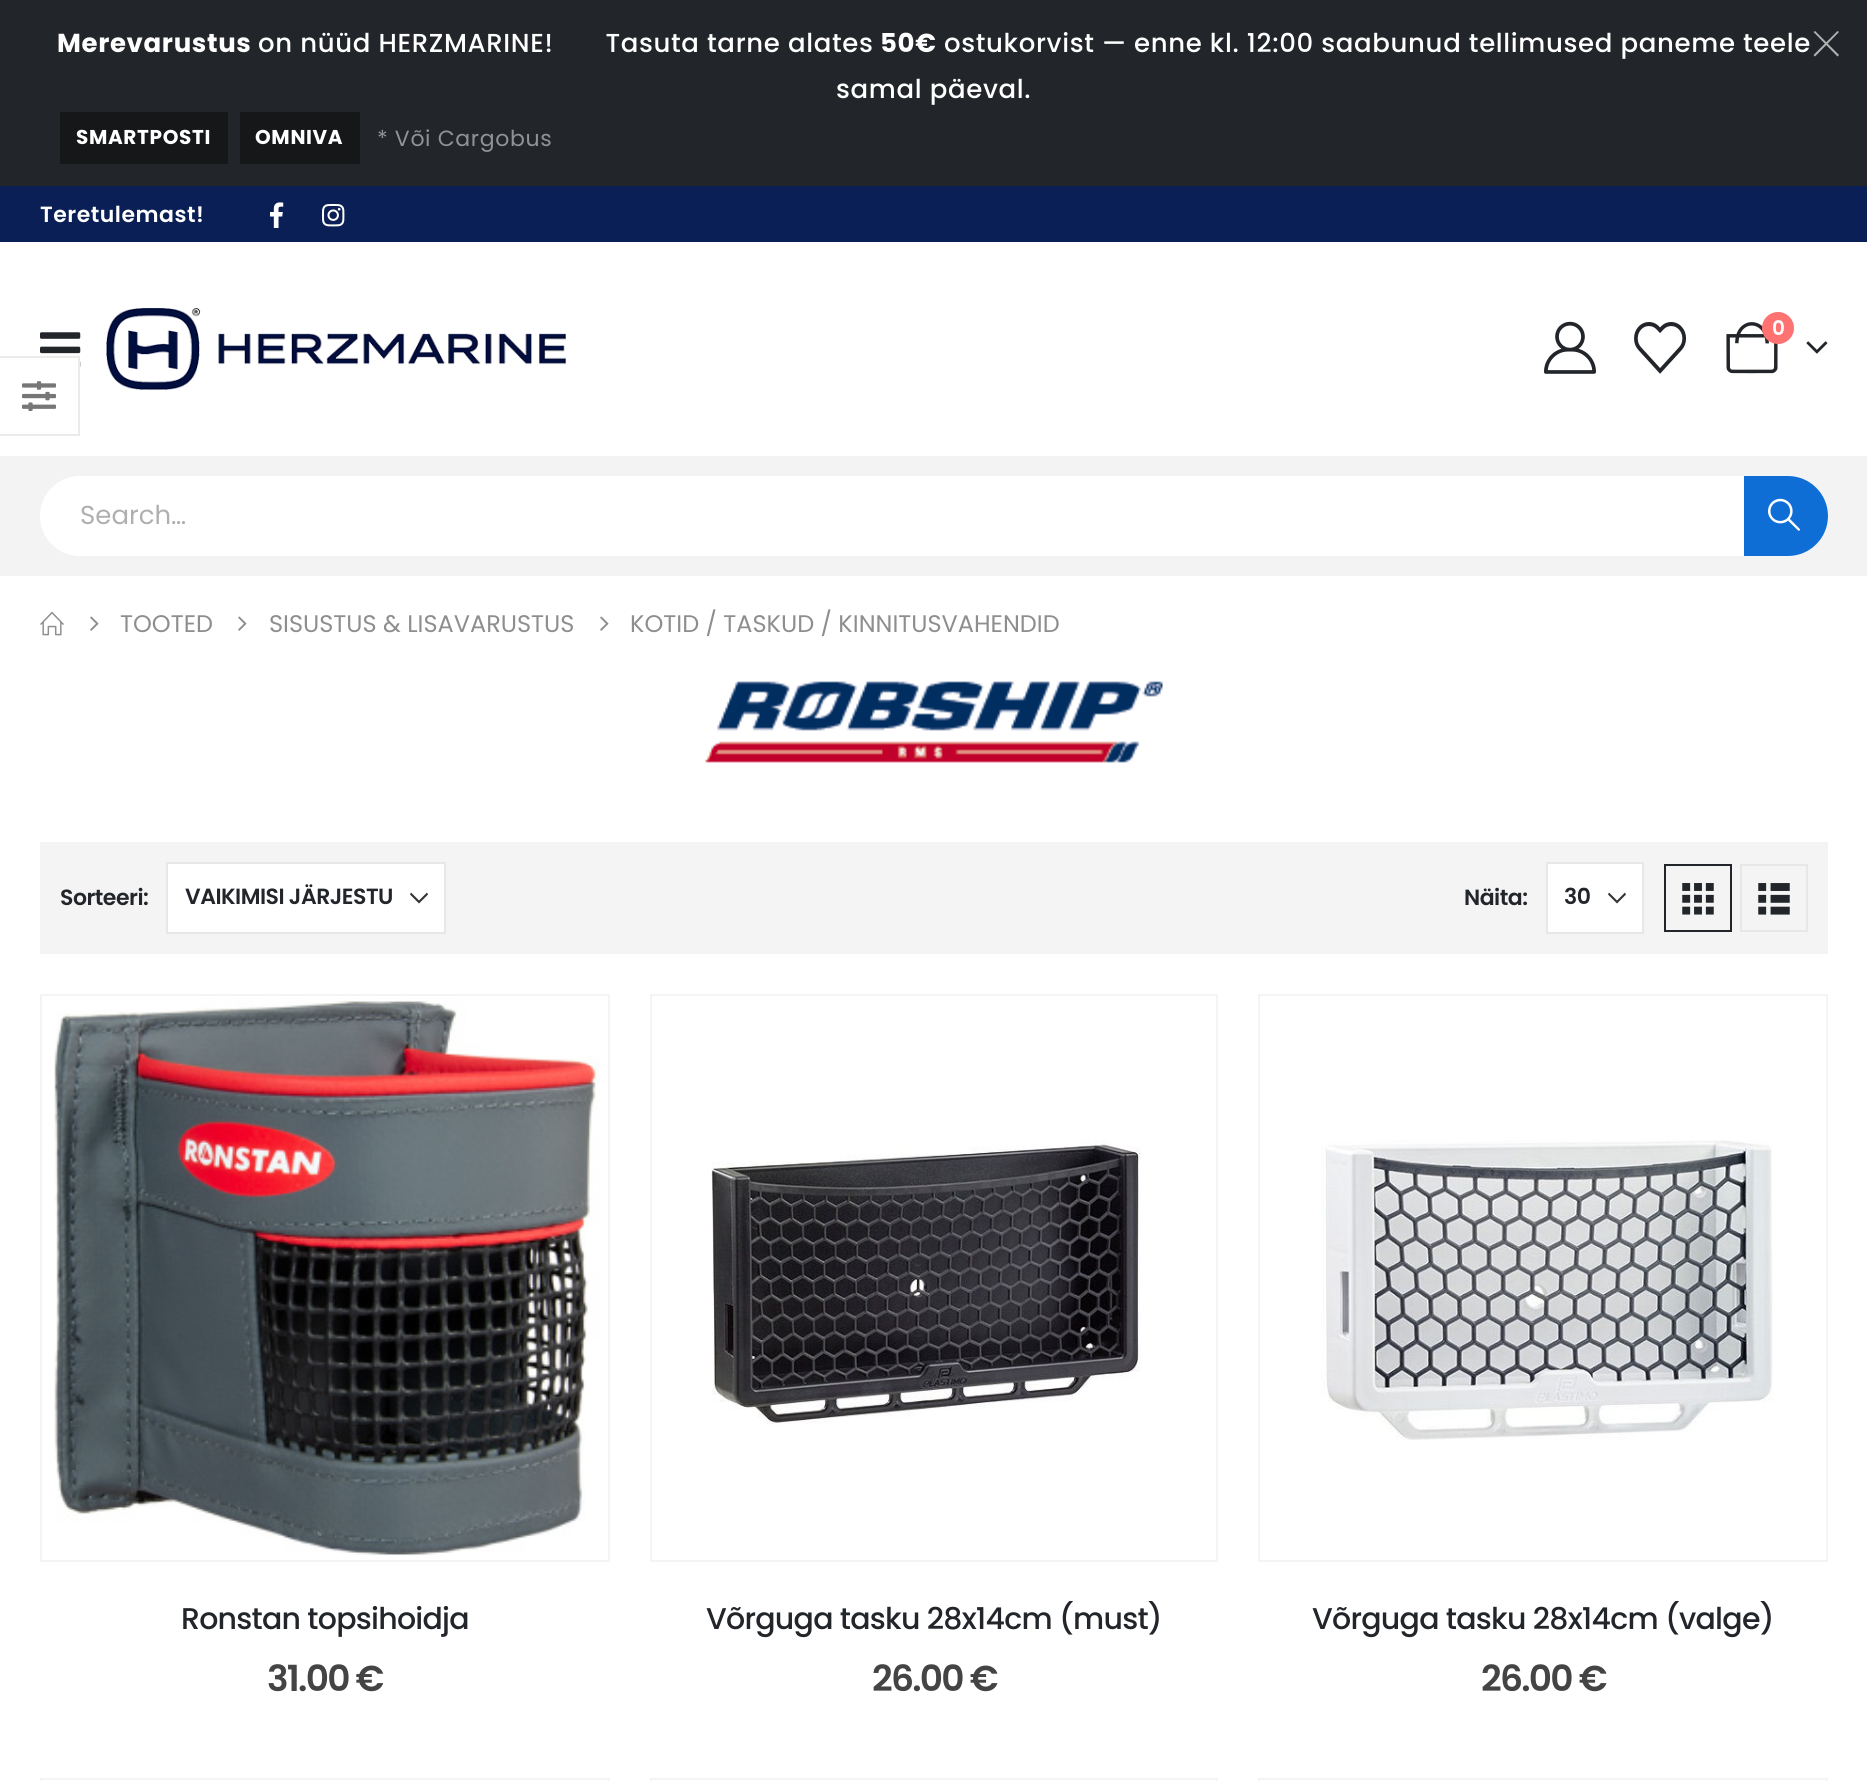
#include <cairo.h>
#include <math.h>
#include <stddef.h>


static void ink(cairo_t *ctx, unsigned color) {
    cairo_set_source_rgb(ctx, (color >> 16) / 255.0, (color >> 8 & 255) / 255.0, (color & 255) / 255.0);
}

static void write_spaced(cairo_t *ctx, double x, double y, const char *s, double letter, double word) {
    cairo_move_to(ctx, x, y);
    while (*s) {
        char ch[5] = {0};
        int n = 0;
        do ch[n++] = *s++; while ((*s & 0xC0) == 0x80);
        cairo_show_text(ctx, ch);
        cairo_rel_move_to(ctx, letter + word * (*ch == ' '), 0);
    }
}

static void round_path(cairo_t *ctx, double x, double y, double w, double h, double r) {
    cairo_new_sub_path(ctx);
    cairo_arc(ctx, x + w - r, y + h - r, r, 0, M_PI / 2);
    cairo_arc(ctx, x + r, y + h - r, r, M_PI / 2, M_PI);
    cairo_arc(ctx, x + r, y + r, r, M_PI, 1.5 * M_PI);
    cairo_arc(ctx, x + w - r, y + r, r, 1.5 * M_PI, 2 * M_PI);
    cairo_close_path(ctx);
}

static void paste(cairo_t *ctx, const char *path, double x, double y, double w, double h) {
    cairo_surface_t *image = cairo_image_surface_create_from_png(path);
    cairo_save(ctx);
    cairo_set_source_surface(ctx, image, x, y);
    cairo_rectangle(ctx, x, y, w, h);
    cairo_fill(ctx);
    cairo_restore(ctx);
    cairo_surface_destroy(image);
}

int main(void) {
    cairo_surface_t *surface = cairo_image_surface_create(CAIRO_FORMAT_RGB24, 1867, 1781);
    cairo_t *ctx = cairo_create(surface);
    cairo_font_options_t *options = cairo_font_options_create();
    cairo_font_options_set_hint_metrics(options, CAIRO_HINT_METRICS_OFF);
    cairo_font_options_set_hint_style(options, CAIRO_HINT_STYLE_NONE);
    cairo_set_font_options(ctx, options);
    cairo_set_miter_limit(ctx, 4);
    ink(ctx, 0xFFFFFF);
    cairo_paint(ctx);
    ink(ctx, 0x222529);
    cairo_rectangle(ctx, 0, 0, 1867, 186);
    cairo_fill(ctx);
    cairo_select_font_face(ctx, "Poppins", CAIRO_FONT_SLANT_NORMAL, CAIRO_FONT_WEIGHT_BOLD);
    cairo_set_font_size(ctx, 26);
    ink(ctx, 0xFFFFFF);
    write_spaced(ctx, 57, 52, "Merevarustus", 0.65, 0);
    cairo_select_font_face(ctx, "Poppins Medium", CAIRO_FONT_SLANT_NORMAL, CAIRO_FONT_WEIGHT_NORMAL);
    write_spaced(ctx, 258, 52, "on nüüd HERZMARINE!       Tasuta tarne alates", 0.65, 0);
    cairo_select_font_face(ctx, "Poppins", CAIRO_FONT_SLANT_NORMAL, CAIRO_FONT_WEIGHT_BOLD);
    write_spaced(ctx, 880, 52, "50€", 0.65, 0);
    cairo_select_font_face(ctx, "Poppins Medium", CAIRO_FONT_SLANT_NORMAL, CAIRO_FONT_WEIGHT_NORMAL);
    write_spaced(ctx, 944, 52, "ostukorvist — enne kl. 12:00 saabunud tellimused paneme teele", 0.65, 0);
    write_spaced(ctx, 836, 98, "samal päeval.", 0.65, 0);
    ink(ctx, 0xB2B3B4);
    cairo_new_path(ctx);
    cairo_move_to(ctx, 1815, 31);
    cairo_line_to(ctx, 1839, 55);
    cairo_line_to(ctx, 1837.5, 56.5);
    cairo_line_to(ctx, 1813.5, 32);
    cairo_close_path(ctx);
    cairo_fill(ctx);
    cairo_new_path(ctx);
    cairo_move_to(ctx, 1837.5, 31);
    cairo_line_to(ctx, 1839, 32);
    cairo_line_to(ctx, 1815, 56.5);
    cairo_line_to(ctx, 1813.5, 55);
    cairo_close_path(ctx);
    cairo_fill(ctx);
    ink(ctx, 0x151719);
    cairo_rectangle(ctx, 60, 112, 168, 52);
    cairo_fill(ctx);
    cairo_select_font_face(ctx, "Poppins", CAIRO_FONT_SLANT_NORMAL, CAIRO_FONT_WEIGHT_BOLD);
    cairo_set_font_size(ctx, 20);
    ink(ctx, 0xFFFFFF);
    write_spaced(ctx, 76, 144, "SMARTPOSTI", 0.65, 0);
    ink(ctx, 0x151719);
    cairo_rectangle(ctx, 240, 112, 120, 52);
    cairo_fill(ctx);
    ink(ctx, 0xFFFFFF);
    write_spaced(ctx, 255, 144, "OMNIVA", 0.65, 0);
    cairo_select_font_face(ctx, "Poppins", CAIRO_FONT_SLANT_NORMAL, CAIRO_FONT_WEIGHT_NORMAL);
    cairo_set_font_size(ctx, 22);
    ink(ctx, 0x919294);
    write_spaced(ctx, 377, 146, "* Või Cargobus", 0.65, 0);
    ink(ctx, 0x0A1F55);
    cairo_rectangle(ctx, 0, 186, 1867, 56);
    cairo_fill(ctx);
    cairo_select_font_face(ctx, "Poppins SemiBold", CAIRO_FONT_SLANT_NORMAL, CAIRO_FONT_WEIGHT_NORMAL);
    ink(ctx, 0xFFFFFF);
    write_spaced(ctx, 40, 222, "Teretulemast!", 0.5, 0);
    paste(ctx, "media/1.png", 270, 202, 14, 26);
    paste(ctx, "media/2.png", 322, 204, 23, 23);
    paste(ctx, "media/3.png", 40, 332, 41, 35);
    paste(ctx, "media/4.png", 106, 308, 460, 82);
    paste(ctx, "media/5.png", 1544, 321, 52, 53);
    paste(ctx, "media/6.png", 1634, 322, 53, 52);
    paste(ctx, "media/7.png", 1726, 322, 52, 52);
    ink(ctx, 0xFF7272);
    cairo_arc(ctx, 1778, 328, 16, 0, 2 * M_PI);
    cairo_fill(ctx);
    cairo_set_font_size(ctx, 20);
    ink(ctx, 0xFFFFFF);
    cairo_move_to(ctx, 1772, 335);
    cairo_show_text(ctx, "0");
    paste(ctx, "media/8.png", 1806, 341, 22, 13);
    ink(ctx, 0xF3F3F3);
    cairo_rectangle(ctx, 0, 456, 1867, 120);
    cairo_fill(ctx);
    ink(ctx, 0xFFFFFF);
    round_path(ctx, 40, 476, 1788, 80, 40);
    cairo_fill(ctx);
    cairo_select_font_face(ctx, "Poppins", CAIRO_FONT_SLANT_NORMAL, CAIRO_FONT_WEIGHT_NORMAL);
    cairo_set_font_size(ctx, 26);
    ink(ctx, 0xAFAFAF);
    cairo_move_to(ctx, 80, 524);
    cairo_show_text(ctx, "Search…");
    ink(ctx, 0x0E6ED5);
    cairo_new_path(ctx);
    cairo_move_to(ctx, 1744, 476);
    cairo_line_to(ctx, 1788, 476);
    cairo_curve_to(ctx, 1810, 476, 1828, 494, 1828, 516);
    cairo_curve_to(ctx, 1828, 538, 1810, 556, 1788, 556);
    cairo_line_to(ctx, 1744, 556);
    cairo_close_path(ctx);
    cairo_fill(ctx);
    paste(ctx, "media/9.png", 1768, 498, 32, 33);
    paste(ctx, "media/10.png", 40, 611, 24, 25);
    paste(ctx, "media/11.png", 90, 616, 9, 15);
    cairo_set_font_size(ctx, 24);
    ink(ctx, 0x8E8E8E);
    cairo_move_to(ctx, 120, 632);
    cairo_show_text(ctx, "TOOTED");
    paste(ctx, "media/11.png", 238, 616, 9, 15);
    cairo_move_to(ctx, 269, 632);
    cairo_show_text(ctx, "SISUSTUS & LISAVARUSTUS");
    paste(ctx, "media/11.png", 600, 616, 9, 15);
    cairo_move_to(ctx, 630, 632);
    cairo_show_text(ctx, "KOTID / TASKUD / KINNITUSVAHENDID");
    ink(ctx, 0xFFFFFF);
    cairo_rectangle(ctx, 40, 361, 40, 6);
    cairo_fill(ctx);
    ink(ctx, 0xEBEBEB);
    cairo_new_path(ctx);
    cairo_move_to(ctx, 0, 356);
    cairo_line_to(ctx, 80, 356);
    cairo_line_to(ctx, 78, 358);
    cairo_line_to(ctx, 0, 358);
    cairo_close_path(ctx);
    cairo_fill(ctx);
    cairo_set_source_rgba(ctx, 0, 0, 0, 0.08);
    cairo_new_path(ctx);
    cairo_move_to(ctx, 80, 356);
    cairo_line_to(ctx, 80, 436);
    cairo_line_to(ctx, 78, 434);
    cairo_line_to(ctx, 78, 358);
    cairo_close_path(ctx);
    cairo_fill(ctx);
    cairo_new_path(ctx);
    cairo_move_to(ctx, 80, 436);
    cairo_line_to(ctx, 0, 436);
    cairo_line_to(ctx, 0, 434);
    cairo_line_to(ctx, 78, 434);
    cairo_close_path(ctx);
    cairo_fill(ctx);
    paste(ctx, "media/12.png", 22, 381, 34, 30);
    paste(ctx, "media/13.png", 705, 681, 458, 82);
    ink(ctx, 0xF4F4F4);
    cairo_rectangle(ctx, 40, 842, 1788, 112);
    cairo_fill(ctx);
    cairo_select_font_face(ctx, "Poppins SemiBold", CAIRO_FONT_SLANT_NORMAL, CAIRO_FONT_WEIGHT_NORMAL);
    cairo_set_font_size(ctx, 22);
    ink(ctx, 0x222529);
    write_spaced(ctx, 60, 905, "Sorteeri:", -0.5, 0);
    ink(ctx, 0xFFFFFF);
    cairo_rectangle(ctx, 168, 864, 276, 68);
    cairo_fill(ctx);
    ink(ctx, 0x333333);
    cairo_set_fill_rule(ctx, CAIRO_FILL_RULE_EVEN_ODD);
    cairo_new_path(ctx);
    cairo_move_to(ctx, 419, 903.5);
    cairo_line_to(ctx, 428, 894.5);
    cairo_line_to(ctx, 427, 892.5);
    cairo_line_to(ctx, 419, 900.5);
    cairo_line_to(ctx, 411, 892.5);
    cairo_line_to(ctx, 410, 894.5);
    cairo_close_path(ctx);
    cairo_fill(ctx);
    cairo_rectangle(ctx, 167, 863, 278, 70);
    ink(ctx, 0xE7E7E7);
    cairo_stroke(ctx);
    ink(ctx, 0x222529);
    write_spaced(ctx, 185, 904, "VAIKIMISI JÄRJESTU", -0.5, 0);
    write_spaced(ctx, 1464, 905, "Näita:", -0.5, 0);
    ink(ctx, 0xFFFFFF);
    cairo_rectangle(ctx, 1548, 864, 94, 68);
    cairo_fill(ctx);
    ink(ctx, 0x333333);
    cairo_new_path(ctx);
    cairo_move_to(ctx, 1617, 903.5);
    cairo_line_to(ctx, 1626, 894.5);
    cairo_line_to(ctx, 1625, 892.5);
    cairo_line_to(ctx, 1617, 900.5);
    cairo_line_to(ctx, 1609, 892.5);
    cairo_line_to(ctx, 1608, 894.5);
    cairo_close_path(ctx);
    cairo_fill(ctx);
    cairo_rectangle(ctx, 1547, 863, 96, 70);
    ink(ctx, 0xE7E7E7);
    cairo_stroke(ctx);
    ink(ctx, 0x222529);
    write_spaced(ctx, 1564, 904, "30", -0.5, 0);
    cairo_rectangle(ctx, 1665, 865, 66, 66);
    cairo_stroke(ctx);
    paste(ctx, "media/14.png", 1682, 883, 32, 32);
    cairo_rectangle(ctx, 1741, 865, 66, 66);
    ink(ctx, 0xE7E7E7);
    cairo_stroke(ctx);
    paste(ctx, "media/15.png", 1758, 883, 32, 32);
    cairo_rectangle(ctx, 41, 995, 568, 566);
    ink(ctx, 0xF4F4F4);
    cairo_stroke(ctx);
    paste(ctx, "media/16.png", 54, 998, 546, 558);
    cairo_select_font_face(ctx, "Poppins Medium", CAIRO_FONT_SLANT_NORMAL, CAIRO_FONT_WEIGHT_NORMAL);
    cairo_set_font_size(ctx, 30);
    ink(ctx, 0x222529);
    write_spaced(ctx, 181, 1629, "Ronstan topsihoidja", -0.75, 0);
    cairo_select_font_face(ctx, "Poppins SemiBold", CAIRO_FONT_SLANT_NORMAL, CAIRO_FONT_WEIGHT_NORMAL);
    cairo_set_font_size(ctx, 36);
    ink(ctx, 0x444444);
    write_spaced(ctx, 267, 1691, "31.00 €", -1.75, 0);
    cairo_rectangle(ctx, 651, 995, 566, 566);
    ink(ctx, 0xF4F4F4);
    cairo_stroke(ctx);
    paste(ctx, "media/17.png", 711, 1140, 430, 285);
    cairo_select_font_face(ctx, "Poppins Medium", CAIRO_FONT_SLANT_NORMAL, CAIRO_FONT_WEIGHT_NORMAL);
    cairo_set_font_size(ctx, 30);
    ink(ctx, 0x222529);
    write_spaced(ctx, 706, 1629, "Võrguga tasku 28x14cm (must)", -0.75, 0);
    cairo_select_font_face(ctx, "Poppins SemiBold", CAIRO_FONT_SLANT_NORMAL, CAIRO_FONT_WEIGHT_NORMAL);
    cairo_set_font_size(ctx, 36);
    ink(ctx, 0x444444);
    write_spaced(ctx, 872, 1691, "26.00 €", -1.75, 0);
    cairo_rectangle(ctx, 1259, 995, 568, 566);
    ink(ctx, 0xF4F4F4);
    cairo_stroke(ctx);
    paste(ctx, "media/18.png", 1321, 1140, 452, 300);
    cairo_select_font_face(ctx, "Poppins Medium", CAIRO_FONT_SLANT_NORMAL, CAIRO_FONT_WEIGHT_NORMAL);
    cairo_set_font_size(ctx, 30);
    ink(ctx, 0x222529);
    write_spaced(ctx, 1312, 1629, "Võrguga tasku 28x14cm (valge)", -0.75, 0);
    cairo_select_font_face(ctx, "Poppins SemiBold", CAIRO_FONT_SLANT_NORMAL, CAIRO_FONT_WEIGHT_NORMAL);
    cairo_set_font_size(ctx, 36);
    ink(ctx, 0x444444);
    write_spaced(ctx, 1481, 1691, "26.00 €", -1.75, 0);
    cairo_rectangle(ctx, 41, 1779, 568, 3);
    ink(ctx, 0xF4F4F4);
    cairo_stroke(ctx);
    cairo_rectangle(ctx, 651, 1779, 566, 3);
    cairo_stroke(ctx);
    cairo_rectangle(ctx, 1259, 1779, 568, 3);
    cairo_stroke(ctx);
    cairo_surface_write_to_png(surface, "image.png");
    cairo_font_options_destroy(options);
    cairo_destroy(ctx);
    cairo_surface_destroy(surface);
    return 0;
}
